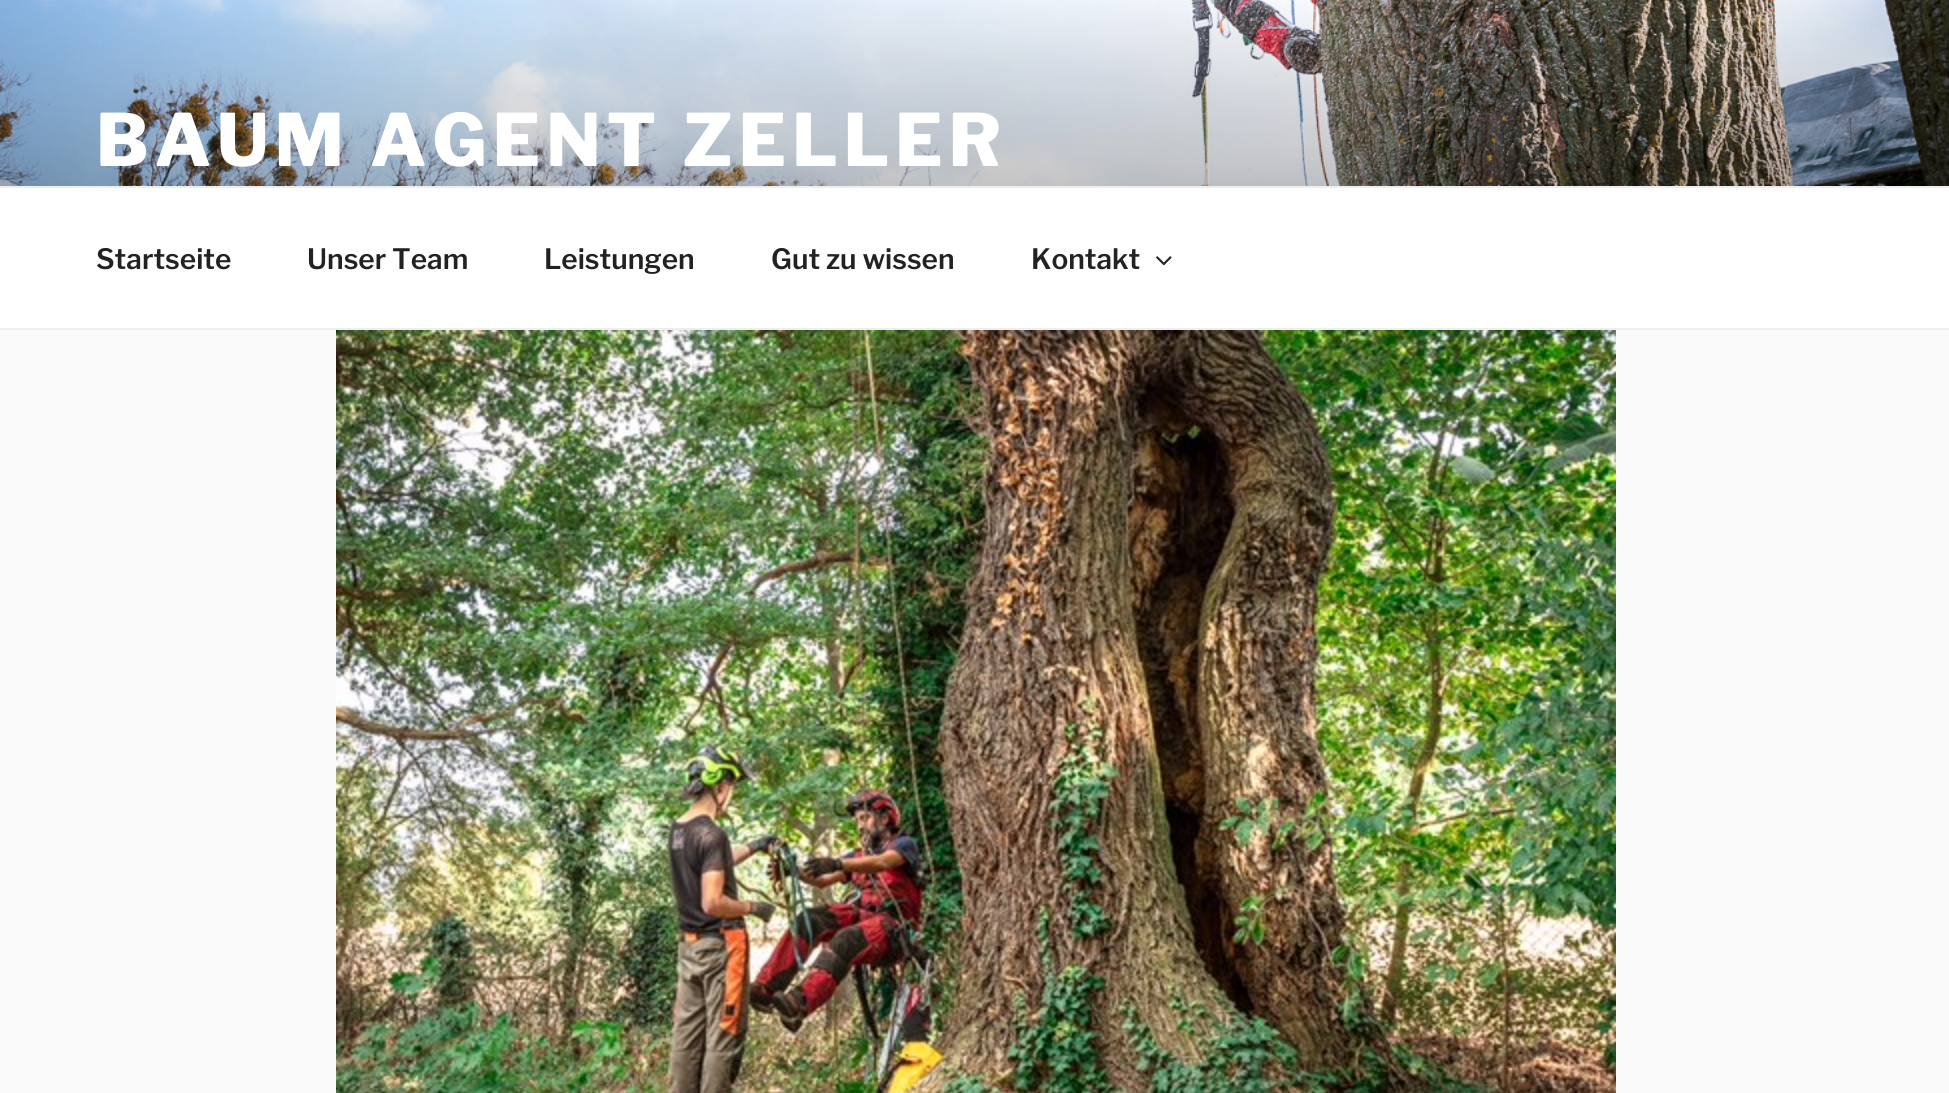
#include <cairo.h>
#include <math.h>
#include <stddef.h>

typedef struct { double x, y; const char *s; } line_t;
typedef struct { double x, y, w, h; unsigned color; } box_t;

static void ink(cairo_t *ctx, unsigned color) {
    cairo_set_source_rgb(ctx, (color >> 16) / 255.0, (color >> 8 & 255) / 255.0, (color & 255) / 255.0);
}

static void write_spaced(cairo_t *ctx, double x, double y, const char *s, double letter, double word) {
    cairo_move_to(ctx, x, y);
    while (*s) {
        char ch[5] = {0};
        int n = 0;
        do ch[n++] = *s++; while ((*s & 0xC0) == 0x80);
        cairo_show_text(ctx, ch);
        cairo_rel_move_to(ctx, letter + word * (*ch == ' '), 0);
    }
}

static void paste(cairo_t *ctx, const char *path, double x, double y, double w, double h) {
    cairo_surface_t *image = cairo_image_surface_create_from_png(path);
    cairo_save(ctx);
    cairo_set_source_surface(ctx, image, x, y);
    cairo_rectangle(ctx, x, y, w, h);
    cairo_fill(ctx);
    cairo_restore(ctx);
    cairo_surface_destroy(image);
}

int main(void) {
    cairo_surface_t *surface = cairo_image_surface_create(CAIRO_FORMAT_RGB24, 1949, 1093);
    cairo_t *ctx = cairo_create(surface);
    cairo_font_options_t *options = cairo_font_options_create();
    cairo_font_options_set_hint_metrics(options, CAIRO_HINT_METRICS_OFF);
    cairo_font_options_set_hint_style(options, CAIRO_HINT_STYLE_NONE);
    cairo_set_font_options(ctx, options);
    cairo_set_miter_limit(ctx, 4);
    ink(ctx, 0xFAFAFA);
    cairo_paint(ctx);
    paste(ctx, "media/1.png", 0, 0, 1949, 186);
    cairo_select_font_face(ctx, "Libre Franklin Thin", CAIRO_FONT_SLANT_NORMAL, CAIRO_FONT_WEIGHT_NORMAL);
    cairo_set_font_size(ctx, 72);
    ink(ctx, 0xFFFFFF);
    write_spaced(ctx, 96, 166, "BAUM AGENT ZELLER", 5.75, 0);
    {
        static const box_t items[] = {
            {0, 188, 1949, 140, 0xFFFFFF},
            {0, 186, 1949, 2, 0xEEEEEE},
            {0, 328, 1949, 2, 0xEEEEEE},
        };
        for (size_t i = 0; i < sizeof items / sizeof *items; i++) {
            ink(ctx, items[i].color);
            cairo_rectangle(ctx, items[i].x, items[i].y, items[i].w, items[i].h);
            cairo_fill(ctx);
        }
    }
    cairo_select_font_face(ctx, "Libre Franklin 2 Thin", CAIRO_FONT_SLANT_NORMAL, CAIRO_FONT_WEIGHT_NORMAL);
    cairo_set_font_size(ctx, 28);
    ink(ctx, 0x222222);
    {
        static const line_t items[] = {
            {96, 269, "Startseite"},
            {307, 269, "Unser Team"},
            {544, 269, "Leistungen"},
            {771, 269, "Gut zu wissen"},
            {1031, 269, "Kontakt"},
        };
        for (size_t i = 0; i < sizeof items / sizeof *items; i++) {
            cairo_move_to(ctx, items[i].x, items[i].y);
            cairo_show_text(ctx, items[i].s);
        }
    }
    paste(ctx, "media/2.png", 1156, 256, 16, 10);
    paste(ctx, "media/3.png", 336, 330, 1280, 763);
    cairo_surface_write_to_png(surface, "image.png");
    cairo_font_options_destroy(options);
    cairo_destroy(ctx);
    cairo_surface_destroy(surface);
    return 0;
}
